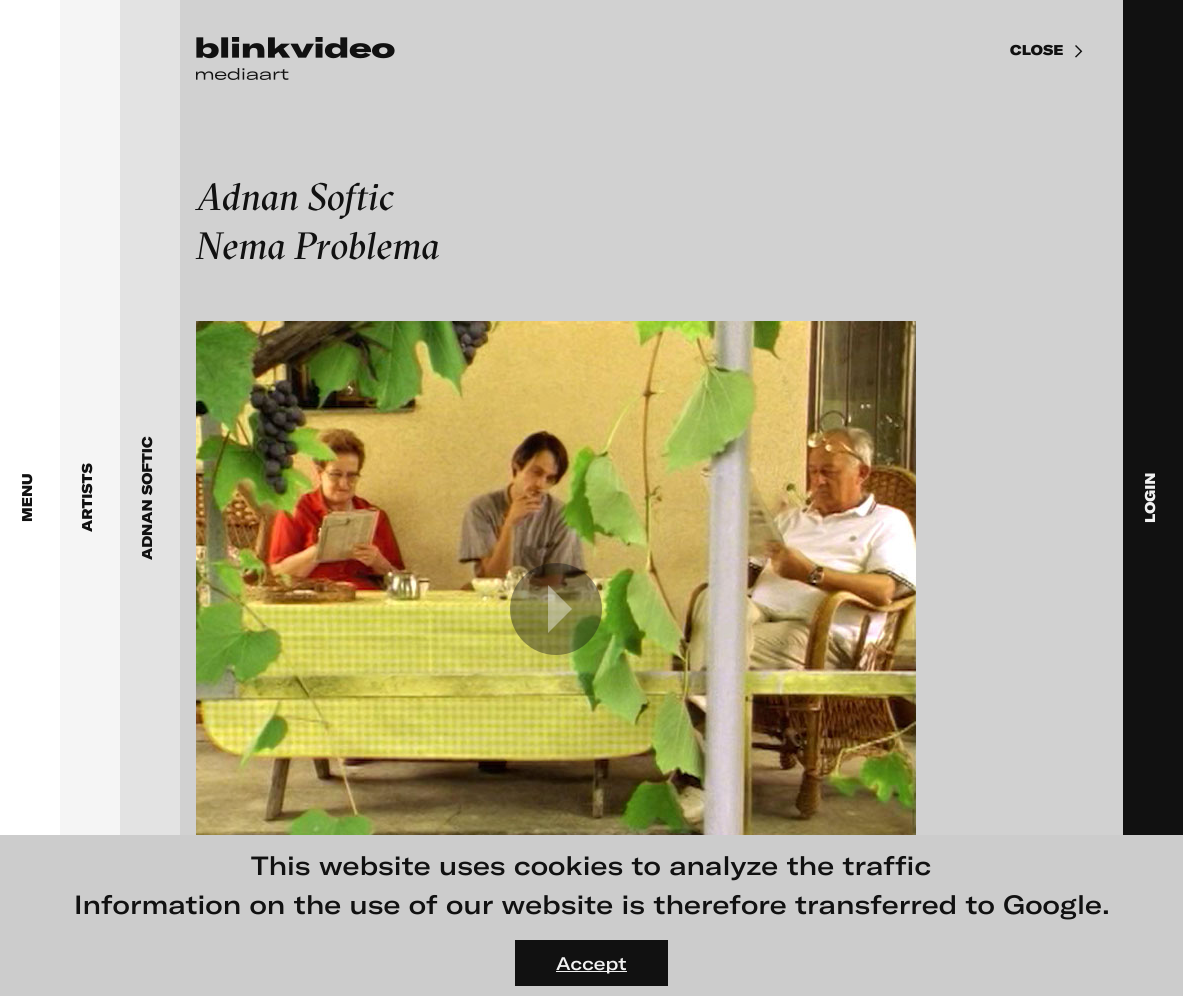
#include <cairo.h>
#include <math.h>
#include <stddef.h>


static void ink(cairo_t *ctx, unsigned color) {
    cairo_set_source_rgb(ctx, (color >> 16) / 255.0, (color >> 8 & 255) / 255.0, (color & 255) / 255.0);
}

static void paste(cairo_t *ctx, const char *path, double x, double y, double w, double h) {
    cairo_surface_t *image = cairo_image_surface_create_from_png(path);
    cairo_save(ctx);
    cairo_set_source_surface(ctx, image, x, y);
    cairo_rectangle(ctx, x, y, w, h);
    cairo_fill(ctx);
    cairo_restore(ctx);
    cairo_surface_destroy(image);
}

int main(void) {
    cairo_surface_t *surface = cairo_image_surface_create(CAIRO_FORMAT_RGB24, 1183, 996);
    cairo_t *ctx = cairo_create(surface);
    cairo_font_options_t *options = cairo_font_options_create();
    cairo_font_options_set_hint_metrics(options, CAIRO_HINT_METRICS_OFF);
    cairo_font_options_set_hint_style(options, CAIRO_HINT_STYLE_NONE);
    cairo_set_font_options(ctx, options);
    cairo_set_miter_limit(ctx, 4);
    ink(ctx, 0xFFFFFF);
    cairo_paint(ctx);
    ink(ctx, 0xD1D1D1);
    cairo_rectangle(ctx, 180, 0, 943, 835);
    cairo_fill(ctx);
    cairo_select_font_face(ctx, "GT America Black", CAIRO_FONT_SLANT_NORMAL, CAIRO_FONT_WEIGHT_NORMAL);
    cairo_set_font_size(ctx, 14);
    ink(ctx, 0x111111);
    cairo_move_to(ctx, 1010, 55);
    cairo_show_text(ctx, "CLOSE");
    paste(ctx, "media/1.png", 1075, 45, 8, 13);
    paste(ctx, "media/2.png", 196, 37, 199, 43);
    cairo_select_font_face(ctx, "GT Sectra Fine", CAIRO_FONT_SLANT_ITALIC, CAIRO_FONT_WEIGHT_NORMAL);
    cairo_set_font_size(ctx, 38);
    cairo_move_to(ctx, 196, 210);
    cairo_show_text(ctx, "Adnan Softic");
    cairo_move_to(ctx, 196, 259);
    cairo_show_text(ctx, "Nema Problema");
    paste(ctx, "media/3.png", 196, 321, 720, 514);
    cairo_set_source_rgba(ctx, 0.067, 0.067, 0.067, 0.4);
    cairo_arc(ctx, 556, 609, 46, 0, 2 * M_PI);
    cairo_fill(ctx);
    cairo_set_source_rgba(ctx, 1, 1, 1, 0.4);
    cairo_new_path(ctx);
    cairo_move_to(ctx, 548, 633);
    cairo_line_to(ctx, 572, 609);
    cairo_line_to(ctx, 548, 585);
    cairo_close_path(ctx);
    cairo_fill(ctx);
    cairo_select_font_face(ctx, "GT America Black", CAIRO_FONT_SLANT_NORMAL, CAIRO_FONT_WEIGHT_NORMAL);
    cairo_set_font_size(ctx, 14);
    ink(ctx, 0x111111);
    cairo_save(ctx);
    cairo_translate(ctx, 32, 522);
    cairo_rotate(ctx, -90 * M_PI / 180);
    cairo_move_to(ctx, 0, 0);
    cairo_show_text(ctx, "MENU");
    cairo_restore(ctx);
    ink(ctx, 0xF5F5F5);
    cairo_rectangle(ctx, 60, 0, 60, 835);
    cairo_fill(ctx);
    cairo_save(ctx);
    cairo_new_path(ctx);
    cairo_move_to(ctx, 80, 532.5);
    cairo_line_to(ctx, 80, 463.5);
    cairo_line_to(ctx, 94, 463.5);
    cairo_line_to(ctx, 94, 532.5);
    cairo_close_path(ctx);
    cairo_clip(ctx);
    ink(ctx, 0x111111);
    cairo_save(ctx);
    cairo_translate(ctx, 92, 532);
    cairo_rotate(ctx, -90 * M_PI / 180);
    cairo_move_to(ctx, 0, 0);
    cairo_show_text(ctx, "ARTISTS");
    cairo_restore(ctx);
    cairo_restore(ctx);
    ink(ctx, 0xE3E3E3);
    cairo_rectangle(ctx, 120, 0, 60, 835);
    cairo_fill(ctx);
    ink(ctx, 0x111111);
    cairo_save(ctx);
    cairo_translate(ctx, 152, 560);
    cairo_rotate(ctx, -90 * M_PI / 180);
    cairo_move_to(ctx, 0, 0);
    cairo_show_text(ctx, "ADNAN SOFTIC");
    cairo_restore(ctx);
    cairo_rectangle(ctx, 1123, 0, 60, 835);
    cairo_fill(ctx);
    ink(ctx, 0xF1F1F1);
    cairo_save(ctx);
    cairo_translate(ctx, 1155, 523);
    cairo_rotate(ctx, -90 * M_PI / 180);
    cairo_move_to(ctx, 0, 0);
    cairo_show_text(ctx, "LOGIN");
    cairo_restore(ctx);
    ink(ctx, 0xCCCCCC);
    cairo_rectangle(ctx, 0, 835, 1183, 161);
    cairo_fill(ctx);
    cairo_select_font_face(ctx, "GT America Medium", CAIRO_FONT_SLANT_NORMAL, CAIRO_FONT_WEIGHT_NORMAL);
    cairo_set_font_size(ctx, 26);
    ink(ctx, 0x111111);
    cairo_move_to(ctx, 251, 875);
    cairo_show_text(ctx, "This website uses cookies to analyze the traffic");
    cairo_move_to(ctx, 74, 914);
    cairo_show_text(ctx, "Information on the use of our website is therefore transferred to Google.");
    cairo_rectangle(ctx, 515, 940, 153, 46);
    cairo_fill(ctx);
    ink(ctx, 0xF1F1F1);
    cairo_rectangle(ctx, 556, 971, 71, 1);
    cairo_fill(ctx);
    cairo_set_font_size(ctx, 18);
    cairo_move_to(ctx, 556, 970);
    cairo_show_text(ctx, "Accept");
    cairo_surface_write_to_png(surface, "image.png");
    cairo_font_options_destroy(options);
    cairo_destroy(ctx);
    cairo_surface_destroy(surface);
    return 0;
}
